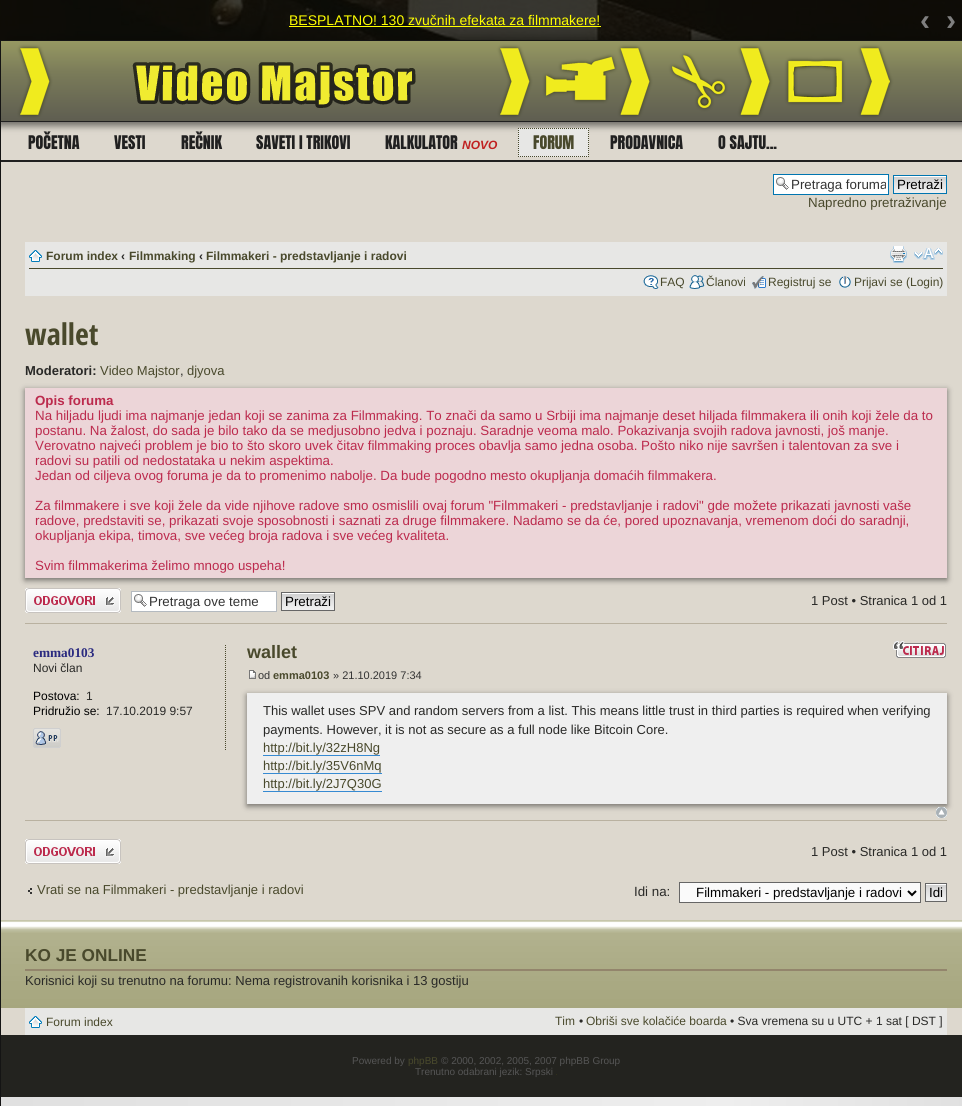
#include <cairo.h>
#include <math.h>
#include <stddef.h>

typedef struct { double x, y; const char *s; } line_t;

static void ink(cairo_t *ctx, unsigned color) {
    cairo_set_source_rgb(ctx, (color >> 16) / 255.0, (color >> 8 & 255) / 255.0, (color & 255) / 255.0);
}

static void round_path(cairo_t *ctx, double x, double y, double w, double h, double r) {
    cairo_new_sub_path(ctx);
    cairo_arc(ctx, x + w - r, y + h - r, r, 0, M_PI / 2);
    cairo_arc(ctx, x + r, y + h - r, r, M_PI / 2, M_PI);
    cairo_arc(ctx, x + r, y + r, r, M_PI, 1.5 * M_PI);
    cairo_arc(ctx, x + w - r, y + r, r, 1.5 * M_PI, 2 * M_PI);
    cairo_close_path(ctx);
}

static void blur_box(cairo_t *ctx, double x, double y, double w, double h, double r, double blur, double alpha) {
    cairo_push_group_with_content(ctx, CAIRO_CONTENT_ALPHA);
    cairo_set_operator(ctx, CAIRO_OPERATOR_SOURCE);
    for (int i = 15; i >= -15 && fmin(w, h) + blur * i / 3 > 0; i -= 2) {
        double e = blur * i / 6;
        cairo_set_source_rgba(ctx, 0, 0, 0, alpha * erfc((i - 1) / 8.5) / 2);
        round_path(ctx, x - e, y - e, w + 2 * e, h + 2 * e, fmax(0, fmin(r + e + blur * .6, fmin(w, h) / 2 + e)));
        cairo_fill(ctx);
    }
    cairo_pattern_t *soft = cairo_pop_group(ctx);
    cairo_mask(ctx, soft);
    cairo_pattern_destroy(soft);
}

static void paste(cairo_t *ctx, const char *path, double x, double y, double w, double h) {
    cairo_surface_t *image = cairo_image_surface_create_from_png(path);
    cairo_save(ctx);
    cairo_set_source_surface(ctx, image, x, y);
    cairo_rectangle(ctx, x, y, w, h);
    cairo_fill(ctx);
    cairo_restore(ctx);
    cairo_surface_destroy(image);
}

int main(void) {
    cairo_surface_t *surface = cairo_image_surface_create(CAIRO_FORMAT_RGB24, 962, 1106);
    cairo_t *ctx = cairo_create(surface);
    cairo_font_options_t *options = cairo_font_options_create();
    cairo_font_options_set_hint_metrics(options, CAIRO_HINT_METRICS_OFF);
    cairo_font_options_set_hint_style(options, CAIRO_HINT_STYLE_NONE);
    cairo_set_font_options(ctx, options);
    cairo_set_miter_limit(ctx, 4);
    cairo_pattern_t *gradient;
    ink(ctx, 0xFFFFFF);
    cairo_paint(ctx);
    paste(ctx, "media/1.png", 0, 0, 962, 40);
    ink(ctx, 0x000000);
    blur_box(ctx, -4, 38, 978, 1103, 20, 5, 0.5);
    gradient = cairo_pattern_create_linear(1, 616, 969, 616);
    cairo_pattern_add_color_stop_rgba(gradient, 0, 0.878, 0.878, 0.878, 1);
    cairo_pattern_add_color_stop_rgba(gradient, 0.75, 0.933, 0.933, 0.933, 1);
    cairo_pattern_add_color_stop_rgba(gradient, 1, 0.878, 0.878, 0.878, 1);
    cairo_set_source(ctx, gradient);
    cairo_pattern_destroy(gradient);
    cairo_rectangle(ctx, 1, 1097, 961, 9);
    cairo_fill(ctx);
    cairo_rectangle(ctx, 0.5, 40.5, 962, 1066);
    ink(ctx, 0x141414);
    cairo_set_line_width(ctx, 1);
    cairo_stroke(ctx);
    ink(ctx, 0xDDD8CE);
    cairo_rectangle(ctx, 1, 122, 961, 913);
    cairo_fill(ctx);
    cairo_save(ctx);
    cairo_new_path(ctx);
    cairo_move_to(ctx, 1, 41);
    cairo_line_to(ctx, 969, 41);
    cairo_line_to(ctx, 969, 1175);
    cairo_curve_to(ctx, 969, 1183.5, 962.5, 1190, 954, 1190);
    cairo_line_to(ctx, 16, 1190);
    cairo_curve_to(ctx, 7.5, 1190, 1, 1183.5, 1, 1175);
    cairo_close_path(ctx);
    cairo_clip(ctx);
    ink(ctx, 0x000000);
    blur_box(ctx, -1, 41, 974, 85, 0, 3.5, 0.5);
    cairo_restore(ctx);
    cairo_set_source_rgba(ctx, 0.047, 0.047, 0.027, 0.8);
    cairo_rectangle(ctx, 0, 0, 962, 40);
    cairo_fill(ctx);
    cairo_select_font_face(ctx, "Liberation Sans", CAIRO_FONT_SLANT_NORMAL, CAIRO_FONT_WEIGHT_NORMAL);
    cairo_set_font_size(ctx, 14);
    ink(ctx, 0xFFFF00);
    cairo_move_to(ctx, 289, 25);
    cairo_show_text(ctx, "BESPLATNO! 130 zvučnih efekata za filmmakere!");
    cairo_rectangle(ctx, 289, 26, 312, 1);
    cairo_fill(ctx);
    cairo_select_font_face(ctx, "Liberation Sans", CAIRO_FONT_SLANT_NORMAL, CAIRO_FONT_WEIGHT_BOLD);
    cairo_set_font_size(ctx, 30);
    ink(ctx, 0x808080);
    cairo_move_to(ctx, 920, 30);
    cairo_show_text(ctx, "‹");
    cairo_move_to(ctx, 946, 30);
    cairo_show_text(ctx, "›");
    ink(ctx, 0x202020);
    cairo_rectangle(ctx, 1, 121, 961, 1);
    cairo_fill(ctx);
    paste(ctx, "media/2.png", 1, 41, 961, 80);
    cairo_rectangle(ctx, 1, 160, 961, 2);
    cairo_fill(ctx);
    cairo_select_font_face(ctx, "Anton", CAIRO_FONT_SLANT_NORMAL, CAIRO_FONT_WEIGHT_NORMAL);
    cairo_set_font_size(ctx, 16);
    {
        static const line_t items[] = {
            {28, 149, "POČETNA"},
            {114, 149, "VESTI"},
            {181, 149, "REČNIK"},
            {256, 149, "SAVETI I TRIKOVI"},
            {385, 149, "KALKULATOR"},
        };
        for (size_t i = 0; i < sizeof items / sizeof *items; i++) {
            cairo_move_to(ctx, items[i].x, items[i].y);
            cairo_show_text(ctx, items[i].s);
        }
    }
    cairo_select_font_face(ctx, "Liberation Sans", CAIRO_FONT_SLANT_ITALIC, CAIRO_FONT_WEIGHT_BOLD);
    cairo_set_font_size(ctx, 12);
    ink(ctx, 0xC02020);
    cairo_move_to(ctx, 462, 149);
    cairo_show_text(ctx, "NOVO");
    ink(ctx, 0xE7E7E5);
    cairo_rectangle(ctx, 518, 128, 71, 29);
    cairo_fill(ctx);
    cairo_select_font_face(ctx, "Anton", CAIRO_FONT_SLANT_NORMAL, CAIRO_FONT_WEIGHT_NORMAL);
    cairo_set_font_size(ctx, 16);
    ink(ctx, 0x49492C);
    cairo_move_to(ctx, 533, 149);
    cairo_show_text(ctx, "FORUM");
    cairo_new_path(ctx);
    cairo_move_to(ctx, 518, 128.5);
    cairo_line_to(ctx, 589, 128.5);
    cairo_set_dash(ctx, (double[]){1, 1}, 2, 0);
    cairo_stroke(ctx);
    cairo_new_path(ctx);
    cairo_move_to(ctx, 588.5, 128);
    cairo_line_to(ctx, 588.5, 157);
    cairo_stroke(ctx);
    cairo_new_path(ctx);
    cairo_move_to(ctx, 518, 156.5);
    cairo_line_to(ctx, 589, 156.5);
    cairo_stroke(ctx);
    cairo_new_path(ctx);
    cairo_move_to(ctx, 518.5, 128);
    cairo_line_to(ctx, 518.5, 157);
    cairo_stroke(ctx);
    ink(ctx, 0x202020);
    cairo_move_to(ctx, 610, 149);
    cairo_show_text(ctx, "PRODAVNICA");
    cairo_move_to(ctx, 718, 149);
    cairo_show_text(ctx, "O SAJTU...");
    ink(ctx, 0xFFFFFF);
    cairo_rectangle(ctx, 774, 175, 114, 19);
    cairo_fill(ctx);
    paste(ctx, "media/3.png", 776, 177, 13, 13);
    cairo_rectangle(ctx, 773.5, 174.5, 115, 20);
    ink(ctx, 0x0075B0);
    cairo_set_dash(ctx, NULL, 0, 0);
    cairo_stroke(ctx);
    cairo_save(ctx);
    cairo_rectangle(ctx, 791, 177, 95, 15);
    cairo_clip(ctx);
    cairo_select_font_face(ctx, "Liberation Sans", CAIRO_FONT_SLANT_NORMAL, CAIRO_FONT_WEIGHT_NORMAL);
    cairo_set_font_size(ctx, 13.33);
    ink(ctx, 0x333333);
    cairo_move_to(ctx, 791, 189);
    cairo_show_text(ctx, "Pretraga foruma");
    cairo_restore(ctx);
    paste(ctx, "media/4.png", 894, 176, 52, 17);
    cairo_rectangle(ctx, 893.5, 175.5, 53, 18);
    cairo_stroke(ctx);
    cairo_select_font_face(ctx, "Liberation Sans", CAIRO_FONT_SLANT_NORMAL, CAIRO_FONT_WEIGHT_NORMAL);
    cairo_set_font_size(ctx, 13.33);
    ink(ctx, 0x000000);
    cairo_move_to(ctx, 897, 189);
    cairo_show_text(ctx, "Pretraži");
    ink(ctx, 0x49492C);
    cairo_move_to(ctx, 808, 207);
    cairo_show_text(ctx, "Napredno pretraživanje");
    ink(ctx, 0xE7E7E5);
    cairo_rectangle(ctx, 25, 242, 922, 54);
    cairo_fill(ctx);
    ink(ctx, 0x49492C);
    cairo_rectangle(ctx, 29, 268, 914, 1);
    cairo_fill(ctx);
    paste(ctx, "media/5.png", 29, 250, 13, 12);
    cairo_select_font_face(ctx, "Liberation Sans", CAIRO_FONT_SLANT_NORMAL, CAIRO_FONT_WEIGHT_BOLD);
    cairo_set_font_size(ctx, 12);
    cairo_move_to(ctx, 46, 260);
    cairo_show_text(ctx, "Forum index");
    ink(ctx, 0x292927);
    cairo_move_to(ctx, 121, 260);
    cairo_show_text(ctx, "‹");
    ink(ctx, 0x49492C);
    cairo_move_to(ctx, 129, 260);
    cairo_show_text(ctx, "Filmmaking");
    ink(ctx, 0x292927);
    cairo_move_to(ctx, 199, 260);
    cairo_show_text(ctx, "‹");
    ink(ctx, 0x49492C);
    cairo_move_to(ctx, 206, 260);
    cairo_show_text(ctx, "Filmmakeri - predstavljanje i radovi");
    paste(ctx, "media/6.png", 890, 246, 17, 17);
    paste(ctx, "media/7.png", 914, 248, 29, 12);
    paste(ctx, "media/8.png", 643, 275, 16, 14);
    cairo_select_font_face(ctx, "Liberation Sans", CAIRO_FONT_SLANT_NORMAL, CAIRO_FONT_WEIGHT_NORMAL);
    cairo_move_to(ctx, 660, 286);
    cairo_show_text(ctx, "FAQ");
    paste(ctx, "media/9.png", 689, 275, 16, 14);
    cairo_move_to(ctx, 706, 286);
    cairo_show_text(ctx, "Članovi");
    paste(ctx, "media/10.png", 752, 276, 14, 13);
    cairo_move_to(ctx, 768, 286);
    cairo_show_text(ctx, "Registruj se");
    paste(ctx, "media/11.png", 839, 276, 12, 12);
    cairo_move_to(ctx, 854, 286);
    cairo_show_text(ctx, "Prijavi se (Login)");
    cairo_select_font_face(ctx, "Open Sans Condensed", CAIRO_FONT_SLANT_NORMAL, CAIRO_FONT_WEIGHT_BOLD);
    cairo_set_font_size(ctx, 30);
    cairo_move_to(ctx, 25, 345);
    cairo_show_text(ctx, "wallet");
    cairo_select_font_face(ctx, "Liberation Sans", CAIRO_FONT_SLANT_NORMAL, CAIRO_FONT_WEIGHT_BOLD);
    cairo_set_font_size(ctx, 13);
    ink(ctx, 0x292927);
    cairo_move_to(ctx, 25, 375);
    cairo_show_text(ctx, "Moderatori:");
    cairo_select_font_face(ctx, "Liberation Sans", CAIRO_FONT_SLANT_NORMAL, CAIRO_FONT_WEIGHT_NORMAL);
    ink(ctx, 0x49492C);
    cairo_move_to(ctx, 100, 375);
    cairo_show_text(ctx, "Video Majstor");
    ink(ctx, 0x292927);
    cairo_move_to(ctx, 180, 375);
    cairo_show_text(ctx, ",");
    ink(ctx, 0x49492C);
    cairo_move_to(ctx, 187, 375);
    cairo_show_text(ctx, "djyova");
    ink(ctx, 0x000000);
    blur_box(ctx, 25, 390, 922, 190, 0, 3, 0.5);
    ink(ctx, 0xECD5D8);
    cairo_rectangle(ctx, 25, 388, 922, 190);
    cairo_fill(ctx);
    cairo_select_font_face(ctx, "Liberation Sans", CAIRO_FONT_SLANT_NORMAL, CAIRO_FONT_WEIGHT_BOLD);
    cairo_set_font_size(ctx, 13.33);
    ink(ctx, 0xBC2A4D);
    cairo_move_to(ctx, 35, 405);
    cairo_show_text(ctx, "Opis foruma");
    cairo_select_font_face(ctx, "Liberation Sans", CAIRO_FONT_SLANT_NORMAL, CAIRO_FONT_WEIGHT_NORMAL);
    {
        static const line_t items[] = {
            {35, 420, "Na hiljadu ljudi ima najmanje jedan koji se zanima za Filmmaking. To znači da samo u Srbiji ima najmanje deset hiljada filmmakera ili onih koji žele da to"},
            {35, 435, "postanu. Na žalost, do sada je bilo tako da se medjusobno jedva i poznaju. Saradnje veoma malo. Pokazivanja svojih radova javnosti, još manje."},
            {35, 450, "Verovatno najveći problem je bio to što skoro uvek čitav filmmaking proces obavlja samo jedna osoba. Pošto niko nije savršen i talentovan za sve i"},
            {35, 465, "radovi su patili od nedostataka u nekim aspektima."},
            {35, 480, "Jedan od ciljeva ovog foruma je da to promenimo nabolje. Da bude pogodno mesto okupljanja domaćih filmmakera."},
            {35, 510, "Za filmmakere i sve koji žele da vide njihove radove smo osmislili ovaj forum \"Filmmakeri - predstavljanje i radovi\" gde možete prikazati javnosti vaše"},
            {35, 525, "radove, predstaviti se, prikazati svoje sposobnosti i saznati za druge filmmakere. Nadamo se da će, pored upoznavanja, vremenom doći do saradnji,"},
            {35, 540, "okupljanja ekipa, timova, sve većeg broja radova i sve većeg kvaliteta."},
            {35, 570, "Svim filmmakerima želimo mnogo uspeha!"},
        };
        for (size_t i = 0; i < sizeof items / sizeof *items; i++) {
            cairo_move_to(ctx, items[i].x, items[i].y);
            cairo_show_text(ctx, items[i].s);
        }
    }
    paste(ctx, "media/12.png", 25, 588, 96, 25);
    ink(ctx, 0xFFFFFF);
    cairo_rectangle(ctx, 132, 592, 144, 19);
    cairo_fill(ctx);
    paste(ctx, "media/3.png", 134, 594, 13, 13);
    cairo_rectangle(ctx, 131.5, 591.5, 145, 20);
    ink(ctx, 0xB4BAC0);
    cairo_stroke(ctx);
    ink(ctx, 0x333333);
    cairo_move_to(ctx, 149, 606);
    cairo_show_text(ctx, "Pretraga ove teme");
    paste(ctx, "media/4.png", 282, 593, 52, 17);
    cairo_rectangle(ctx, 281.5, 592.5, 53, 18);
    ink(ctx, 0x666666);
    cairo_stroke(ctx);
    ink(ctx, 0x000000);
    cairo_move_to(ctx, 285, 606);
    cairo_show_text(ctx, "Pretraži");
    cairo_set_font_size(ctx, 13);
    ink(ctx, 0x292927);
    cairo_move_to(ctx, 811, 605);
    cairo_show_text(ctx, "1 Post • Stranica 1 od 1");
    ink(ctx, 0xB9B1A0);
    cairo_rectangle(ctx, 25, 623, 922, 1);
    cairo_fill(ctx);
    cairo_rectangle(ctx, 25, 820, 922, 1);
    cairo_fill(ctx);
    cairo_new_path(ctx);
    cairo_move_to(ctx, 225.5, 645);
    cairo_line_to(ctx, 225.5, 751);
    ink(ctx, 0x49492C);
    cairo_set_dash(ctx, (double[]){1, 1}, 2, 0);
    cairo_stroke(ctx);
    cairo_select_font_face(ctx, "Liberation Serif", CAIRO_FONT_SLANT_NORMAL, CAIRO_FONT_WEIGHT_BOLD);
    cairo_set_font_size(ctx, 13.33);
    ink(ctx, 0x2B2B80);
    cairo_move_to(ctx, 33, 657);
    cairo_show_text(ctx, "emma0103");
    cairo_select_font_face(ctx, "Liberation Sans", CAIRO_FONT_SLANT_NORMAL, CAIRO_FONT_WEIGHT_NORMAL);
    cairo_set_font_size(ctx, 12);
    ink(ctx, 0x292927);
    cairo_move_to(ctx, 33, 672);
    cairo_show_text(ctx, "Novi član");
    ink(ctx, 0x000000);
    cairo_move_to(ctx, 33, 700);
    cairo_show_text(ctx, "Postova:");
    ink(ctx, 0x292927);
    cairo_move_to(ctx, 86, 700);
    cairo_show_text(ctx, "1");
    ink(ctx, 0x000000);
    cairo_move_to(ctx, 33, 715);
    cairo_show_text(ctx, "Pridružio se:");
    ink(ctx, 0x292927);
    cairo_move_to(ctx, 106, 715);
    cairo_show_text(ctx, "17.10.2019 9:57");
    paste(ctx, "media/13.png", 33, 728, 28, 20);
    cairo_select_font_face(ctx, "Liberation Sans", CAIRO_FONT_SLANT_NORMAL, CAIRO_FONT_WEIGHT_BOLD);
    cairo_set_font_size(ctx, 18);
    ink(ctx, 0x49492C);
    cairo_move_to(ctx, 247, 658);
    cairo_show_text(ctx, "wallet");
    paste(ctx, "media/14.png", 893, 641, 11, 9);
    paste(ctx, "media/15.png", 894, 642, 52, 16);
    paste(ctx, "media/16.png", 249, 670, 7, 9);
    cairo_select_font_face(ctx, "Liberation Sans", CAIRO_FONT_SLANT_NORMAL, CAIRO_FONT_WEIGHT_NORMAL);
    cairo_set_font_size(ctx, 11);
    ink(ctx, 0x333333);
    cairo_move_to(ctx, 258, 679);
    cairo_show_text(ctx, "od");
    cairo_select_font_face(ctx, "Liberation Sans", CAIRO_FONT_SLANT_NORMAL, CAIRO_FONT_WEIGHT_BOLD);
    ink(ctx, 0x49492C);
    cairo_move_to(ctx, 273, 679);
    cairo_show_text(ctx, "emma0103");
    cairo_select_font_face(ctx, "Liberation Sans", CAIRO_FONT_SLANT_NORMAL, CAIRO_FONT_WEIGHT_NORMAL);
    ink(ctx, 0x333333);
    cairo_move_to(ctx, 333, 679);
    cairo_show_text(ctx, "» 21.10.2019 7:34");
    ink(ctx, 0x000000);
    blur_box(ctx, 247, 695, 700, 111, 0, 3, 0.5);
    ink(ctx, 0xEFEFEF);
    cairo_rectangle(ctx, 247, 693, 700, 111);
    cairo_fill(ctx);
    cairo_set_font_size(ctx, 13);
    ink(ctx, 0x292927);
    cairo_move_to(ctx, 263, 715);
    cairo_show_text(ctx, "This wallet uses SPV and random servers from a list. This means little trust in third parties is required when verifying");
    cairo_move_to(ctx, 263, 734);
    cairo_show_text(ctx, "payments. However, it is not as secure as a full node like Bitcoin Core.");
    ink(ctx, 0x49492C);
    cairo_move_to(ctx, 263, 752);
    cairo_show_text(ctx, "http://bit.ly/32zH8Ng");
    ink(ctx, 0x368AD2);
    cairo_rectangle(ctx, 263, 755, 117, 1);
    cairo_fill(ctx);
    ink(ctx, 0x49492C);
    cairo_move_to(ctx, 263, 770);
    cairo_show_text(ctx, "http://bit.ly/35V6nMq");
    ink(ctx, 0x368AD2);
    cairo_rectangle(ctx, 263, 773, 119, 1);
    cairo_fill(ctx);
    ink(ctx, 0x49492C);
    cairo_move_to(ctx, 263, 788);
    cairo_show_text(ctx, "http://bit.ly/2J7Q30G");
    ink(ctx, 0x368AD2);
    cairo_rectangle(ctx, 263, 791, 119, 1);
    cairo_fill(ctx);
    paste(ctx, "media/17.png", 936, 807, 11, 11);
    paste(ctx, "media/12.png", 25, 839, 96, 25);
    ink(ctx, 0x292927);
    cairo_move_to(ctx, 811, 856);
    cairo_show_text(ctx, "1 Post • Stranica 1 od 1");
    paste(ctx, "media/18.png", 28, 888, 4, 6);
    ink(ctx, 0x49492C);
    cairo_move_to(ctx, 37, 894);
    cairo_show_text(ctx, "Vrati se na Filmmakeri - predstavljanje i radovi");
    cairo_set_font_size(ctx, 13.33);
    ink(ctx, 0x292927);
    cairo_move_to(ctx, 634, 896);
    cairo_show_text(ctx, "Idi na:");
    ink(ctx, 0xFAFAFA);
    cairo_rectangle(ctx, 679.5, 882.5, 241, 20);
    cairo_fill_preserve(ctx);
    ink(ctx, 0x666666);
    cairo_set_dash(ctx, NULL, 0, 0);
    cairo_stroke(ctx);
    cairo_new_path(ctx);
    cairo_move_to(ctx, 908, 891);
    cairo_line_to(ctx, 912, 895);
    cairo_line_to(ctx, 916, 891);
    ink(ctx, 0x000000);
    cairo_set_line_width(ctx, 2);
    cairo_stroke(ctx);
    cairo_move_to(ctx, 696, 897);
    cairo_show_text(ctx, "Filmmakeri - predstavljanje i radovi");
    paste(ctx, "media/19.png", 926, 884, 20, 17);
    cairo_rectangle(ctx, 925.5, 883.5, 21, 18);
    ink(ctx, 0x666666);
    cairo_set_line_width(ctx, 1);
    cairo_stroke(ctx);
    ink(ctx, 0x000000);
    cairo_move_to(ctx, 929, 897);
    cairo_show_text(ctx, "Idi");
    paste(ctx, "media/20.png", 1, 920, 961, 88);
    ink(ctx, 0x93856C);
    cairo_rectangle(ctx, 25, 969, 922, 2);
    cairo_fill(ctx);
    cairo_select_font_face(ctx, "Liberation Sans", CAIRO_FONT_SLANT_NORMAL, CAIRO_FONT_WEIGHT_BOLD);
    cairo_set_font_size(ctx, 17.25);
    ink(ctx, 0x49492C);
    cairo_move_to(ctx, 25, 961);
    cairo_show_text(ctx, "KO JE ONLINE");
    cairo_select_font_face(ctx, "Liberation Sans", CAIRO_FONT_SLANT_NORMAL, CAIRO_FONT_WEIGHT_NORMAL);
    cairo_set_font_size(ctx, 13);
    ink(ctx, 0x292927);
    cairo_move_to(ctx, 25, 985);
    cairo_show_text(ctx, "Korisnici koji su trenutno na forumu: Nema registrovanih korisnika i 13 gostiju");
    ink(ctx, 0xE7E7E5);
    cairo_rectangle(ctx, 25, 1008, 922, 27);
    cairo_fill(ctx);
    paste(ctx, "media/5.png", 29, 1016, 13, 12);
    cairo_set_font_size(ctx, 12);
    ink(ctx, 0x49492C);
    cairo_move_to(ctx, 46, 1026);
    cairo_show_text(ctx, "Forum index");
    cairo_move_to(ctx, 555, 1025);
    cairo_show_text(ctx, "Tim");
    ink(ctx, 0x292927);
    cairo_move_to(ctx, 579, 1025);
    cairo_show_text(ctx, "•");
    ink(ctx, 0x49492C);
    cairo_move_to(ctx, 586, 1025);
    cairo_show_text(ctx, "Obriši sve kolačiće boarda");
    ink(ctx, 0x292927);
    cairo_move_to(ctx, 730, 1025);
    cairo_show_text(ctx, "• Sva vremena su u UTC + 1 sat [ DST ]");
    ink(ctx, 0x23231F);
    cairo_rectangle(ctx, 1, 1035, 961, 62);
    cairo_fill(ctx);
    cairo_set_font_size(ctx, 10);
    ink(ctx, 0x555555);
    cairo_move_to(ctx, 352, 1064);
    cairo_show_text(ctx, "Powered by");
    ink(ctx, 0x49492C);
    cairo_move_to(ctx, 408, 1064);
    cairo_show_text(ctx, "phpBB");
    ink(ctx, 0x555555);
    cairo_move_to(ctx, 441, 1064);
    cairo_show_text(ctx, "© 2000, 2002, 2005, 2007 phpBB Group");
    cairo_move_to(ctx, 415, 1075);
    cairo_show_text(ctx, "Trenutno odabrani jezik: Srpski");
    ink(ctx, 0x30301A);
    cairo_rectangle(ctx, 556, 1074, 1, 1);
    cairo_fill(ctx);
    cairo_surface_write_to_png(surface, "image.png");
    cairo_font_options_destroy(options);
    cairo_destroy(ctx);
    cairo_surface_destroy(surface);
    return 0;
}
